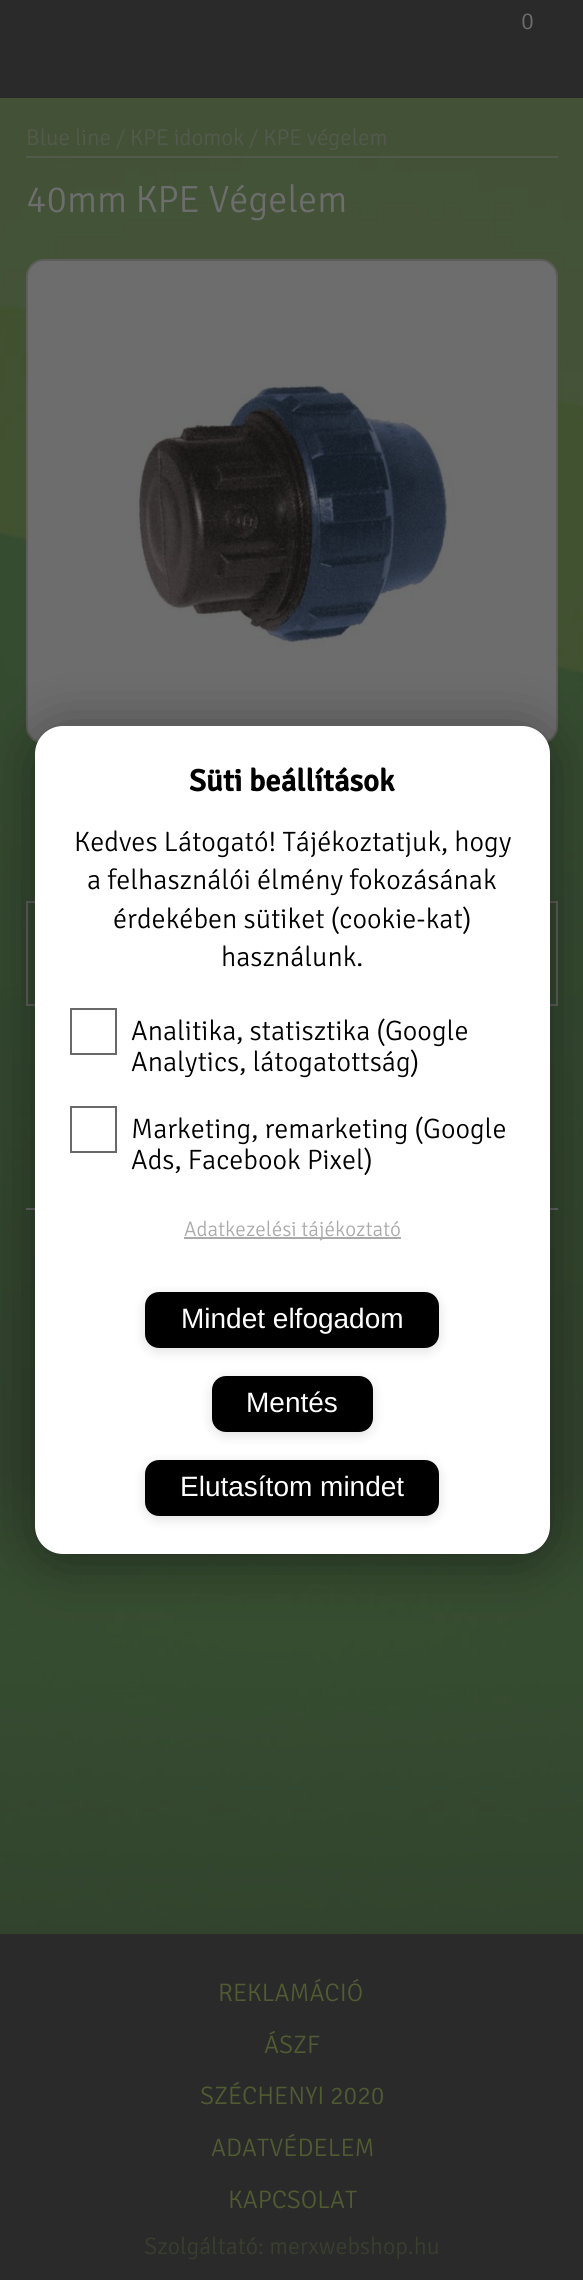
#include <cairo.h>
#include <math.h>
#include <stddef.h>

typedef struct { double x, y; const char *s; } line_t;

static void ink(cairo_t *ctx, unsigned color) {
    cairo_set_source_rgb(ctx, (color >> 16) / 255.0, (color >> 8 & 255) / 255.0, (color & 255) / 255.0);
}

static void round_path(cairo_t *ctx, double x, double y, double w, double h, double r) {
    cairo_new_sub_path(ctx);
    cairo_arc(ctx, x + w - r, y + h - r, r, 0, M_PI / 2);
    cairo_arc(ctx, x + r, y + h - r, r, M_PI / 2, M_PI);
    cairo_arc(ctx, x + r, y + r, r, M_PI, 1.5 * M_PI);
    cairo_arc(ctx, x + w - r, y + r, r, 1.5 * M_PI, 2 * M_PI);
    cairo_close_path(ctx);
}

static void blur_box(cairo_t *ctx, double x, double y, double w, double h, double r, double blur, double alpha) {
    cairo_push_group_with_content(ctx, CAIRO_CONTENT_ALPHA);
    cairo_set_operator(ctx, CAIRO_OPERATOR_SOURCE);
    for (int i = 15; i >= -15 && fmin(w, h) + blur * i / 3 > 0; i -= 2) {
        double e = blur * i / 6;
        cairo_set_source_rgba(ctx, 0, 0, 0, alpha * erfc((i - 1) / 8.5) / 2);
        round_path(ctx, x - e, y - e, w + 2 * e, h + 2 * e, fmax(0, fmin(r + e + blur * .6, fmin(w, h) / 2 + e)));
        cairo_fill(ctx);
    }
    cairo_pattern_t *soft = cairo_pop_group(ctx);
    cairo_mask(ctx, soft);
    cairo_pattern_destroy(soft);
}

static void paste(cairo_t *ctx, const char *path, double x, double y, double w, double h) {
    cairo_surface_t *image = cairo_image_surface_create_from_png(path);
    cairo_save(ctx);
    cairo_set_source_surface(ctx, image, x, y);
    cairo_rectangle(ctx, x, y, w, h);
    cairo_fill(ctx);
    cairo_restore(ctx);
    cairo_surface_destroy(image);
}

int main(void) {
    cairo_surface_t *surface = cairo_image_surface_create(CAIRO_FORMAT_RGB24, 583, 2280);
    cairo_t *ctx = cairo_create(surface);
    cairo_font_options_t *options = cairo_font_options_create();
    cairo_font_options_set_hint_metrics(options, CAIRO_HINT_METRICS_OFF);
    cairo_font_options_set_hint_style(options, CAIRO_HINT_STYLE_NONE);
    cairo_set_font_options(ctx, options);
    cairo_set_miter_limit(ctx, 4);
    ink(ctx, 0xFFFFFF);
    cairo_paint(ctx);
    ink(ctx, 0x2A2A2B);
    cairo_rectangle(ctx, 0, 0, 583, 98);
    cairo_fill(ctx);
    cairo_select_font_face(ctx, "Signika Negative Light", CAIRO_FONT_SLANT_NORMAL, CAIRO_FONT_WEIGHT_NORMAL);
    cairo_set_font_size(ctx, 24);
    ink(ctx, 0x6D6D6D);
    cairo_move_to(ctx, 521, 29);
    cairo_show_text(ctx, "0");
    paste(ctx, "media/1.png", 0, 98, 583, 1836);
    cairo_set_source_rgba(ctx, 0.388, 0.388, 0.388, 0.5);
    cairo_rectangle(ctx, 26, 156, 532, 2);
    cairo_fill(ctx);
    cairo_set_font_size(ctx, 22.75);
    ink(ctx, 0x535A4D);
    cairo_move_to(ctx, 26, 145);
    cairo_show_text(ctx, "Blue line / KPE idomok / KPE végelem");
    cairo_set_font_size(ctx, 38);
    ink(ctx, 0x6D6D6D);
    cairo_move_to(ctx, 26, 212);
    cairo_show_text(ctx, "40mm KPE Végelem");
    round_path(ctx, 27, 260, 530, 483, 17);
    cairo_fill_preserve(ctx);
    ink(ctx, 0x5E5D5B);
    cairo_stroke(ctx);
    paste(ctx, "media/2.png", 136, 384, 320, 264);
    cairo_rectangle(ctx, 27, 902, 530, 103);
    cairo_stroke(ctx);
    ink(ctx, 0x636365);
    cairo_rectangle(ctx, 26, 1208, 532, 2);
    cairo_fill(ctx);
    ink(ctx, 0x2A2A2B);
    cairo_rectangle(ctx, 0, 1934, 583, 346);
    cairo_fill(ctx);
    cairo_set_font_size(ctx, 25.25);
    ink(ctx, 0x505B31);
    {
        static const line_t items[] = {
            {218, 2001, "REKLAMÁCIÓ"},
            {264, 2053, "ÁSZF"},
            {200, 2104, "SZÉCHENYI 2020"},
            {211, 2156, "ADATVÉDELEM"},
            {228, 2208, "KAPCSOLAT"},
        };
        for (size_t i = 0; i < sizeof items / sizeof *items; i++) {
            cairo_move_to(ctx, items[i].x, items[i].y);
            cairo_show_text(ctx, items[i].s);
        }
    }
    cairo_set_font_size(ctx, 23.75);
    ink(ctx, 0x393E2E);
    cairo_move_to(ctx, 144, 2254);
    cairo_show_text(ctx, "Szolgáltató: merxwebshop.hu");
    ink(ctx, 0x000000);
    blur_box(ctx, 35, 733, 515, 828, 28, 28, 0.4);
    ink(ctx, 0xFFFFFF);
    round_path(ctx, 35, 726, 515, 828, 28);
    cairo_fill(ctx);
    cairo_select_font_face(ctx, "Signika Negative", CAIRO_FONT_SLANT_NORMAL, CAIRO_FONT_WEIGHT_BOLD);
    cairo_set_font_size(ctx, 30.75);
    ink(ctx, 0x000000);
    cairo_move_to(ctx, 189, 791);
    cairo_show_text(ctx, "Süti beállítások");
    cairo_select_font_face(ctx, "Signika Negative Light", CAIRO_FONT_SLANT_NORMAL, CAIRO_FONT_WEIGHT_NORMAL);
    cairo_set_font_size(ctx, 28);
    {
        static const line_t items[] = {
            {74, 851, "Kedves Látogató! Tájékoztatjuk, hogy"},
            {87, 889, "a felhasználói élmény fokozásának"},
            {113, 928, "érdekében sütiket (cookie-kat)"},
            {221, 966, "használunk."},
        };
        for (size_t i = 0; i < sizeof items / sizeof *items; i++) {
            cairo_move_to(ctx, items[i].x, items[i].y);
            cairo_show_text(ctx, items[i].s);
        }
    }
    cairo_rectangle(ctx, 71, 1009, 45, 45);
    ink(ctx, 0x696969);
    cairo_stroke(ctx);
    ink(ctx, 0x000000);
    cairo_move_to(ctx, 131, 1040);
    cairo_show_text(ctx, "Analitika, statisztika (Google");
    cairo_move_to(ctx, 131, 1071);
    cairo_show_text(ctx, "Analytics, látogatottság)");
    cairo_rectangle(ctx, 71, 1107, 45, 45);
    ink(ctx, 0x696969);
    cairo_stroke(ctx);
    ink(ctx, 0x000000);
    cairo_move_to(ctx, 131, 1138);
    cairo_show_text(ctx, "Marketing, remarketing (Google");
    cairo_move_to(ctx, 131, 1169);
    cairo_show_text(ctx, "Ads, Facebook Pixel)");
    ink(ctx, 0xAAAAAA);
    cairo_rectangle(ctx, 184, 1237, 217, 2);
    cairo_fill(ctx);
    cairo_set_font_size(ctx, 21);
    cairo_move_to(ctx, 184, 1236);
    cairo_show_text(ctx, "Adatkezelési tájékoztató");
    ink(ctx, 0x000000);
    blur_box(ctx, 145, 1295, 294, 56, 14, 6, 0.13);
    ink(ctx, 0x000000);
    round_path(ctx, 145, 1292, 294, 56, 14);
    cairo_fill(ctx);
    cairo_select_font_face(ctx, "Liberation Sans", CAIRO_FONT_SLANT_NORMAL, CAIRO_FONT_WEIGHT_NORMAL);
    cairo_set_font_size(ctx, 28);
    ink(ctx, 0xFFFFFF);
    cairo_move_to(ctx, 181, 1328);
    cairo_show_text(ctx, "Mindet elfogadom");
    ink(ctx, 0x000000);
    blur_box(ctx, 212, 1379, 161, 56, 14, 6, 0.13);
    ink(ctx, 0x000000);
    round_path(ctx, 212, 1376, 161, 56, 14);
    cairo_fill(ctx);
    ink(ctx, 0xFFFFFF);
    cairo_move_to(ctx, 246, 1412);
    cairo_show_text(ctx, "Mentés");
    ink(ctx, 0x000000);
    blur_box(ctx, 145, 1463, 294, 56, 14, 6, 0.13);
    ink(ctx, 0x000000);
    round_path(ctx, 145, 1460, 294, 56, 14);
    cairo_fill(ctx);
    ink(ctx, 0xFFFFFF);
    cairo_move_to(ctx, 180, 1496);
    cairo_show_text(ctx, "Elutasítom mindet");
    cairo_surface_write_to_png(surface, "image.png");
    cairo_font_options_destroy(options);
    cairo_destroy(ctx);
    cairo_surface_destroy(surface);
    return 0;
}
